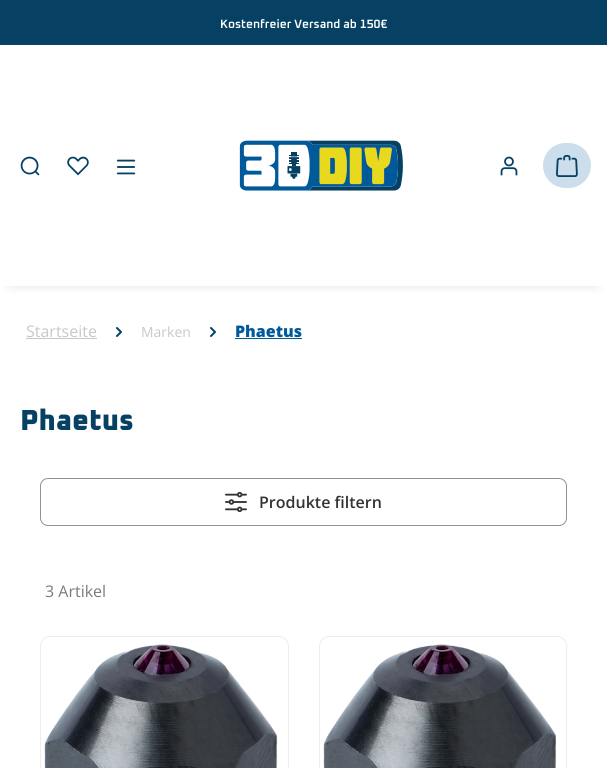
#include <cairo.h>
#include <math.h>
#include <stddef.h>


static void ink(cairo_t *ctx, unsigned color) {
    cairo_set_source_rgb(ctx, (color >> 16) / 255.0, (color >> 8 & 255) / 255.0, (color & 255) / 255.0);
}

static void round_path(cairo_t *ctx, double x, double y, double w, double h, double r) {
    cairo_new_sub_path(ctx);
    cairo_arc(ctx, x + w - r, y + h - r, r, 0, M_PI / 2);
    cairo_arc(ctx, x + r, y + h - r, r, M_PI / 2, M_PI);
    cairo_arc(ctx, x + r, y + r, r, M_PI, 1.5 * M_PI);
    cairo_arc(ctx, x + w - r, y + r, r, 1.5 * M_PI, 2 * M_PI);
    cairo_close_path(ctx);
}

static void blur_box(cairo_t *ctx, double x, double y, double w, double h, double r, double blur, double alpha) {
    cairo_push_group_with_content(ctx, CAIRO_CONTENT_ALPHA);
    cairo_set_operator(ctx, CAIRO_OPERATOR_SOURCE);
    for (int i = 15; i >= -15 && fmin(w, h) + blur * i / 3 > 0; i -= 2) {
        double e = blur * i / 6;
        cairo_set_source_rgba(ctx, 0, 0, 0, alpha * erfc((i - 1) / 8.5) / 2);
        round_path(ctx, x - e, y - e, w + 2 * e, h + 2 * e, fmax(0, fmin(r + e + blur * .6, fmin(w, h) / 2 + e)));
        cairo_fill(ctx);
    }
    cairo_pattern_t *soft = cairo_pop_group(ctx);
    cairo_mask(ctx, soft);
    cairo_pattern_destroy(soft);
}

static void paste(cairo_t *ctx, const char *path, double x, double y, double w, double h) {
    cairo_surface_t *image = cairo_image_surface_create_from_png(path);
    cairo_save(ctx);
    cairo_set_source_surface(ctx, image, x, y);
    cairo_rectangle(ctx, x, y, w, h);
    cairo_fill(ctx);
    cairo_restore(ctx);
    cairo_surface_destroy(image);
}

int main(void) {
    cairo_surface_t *surface = cairo_image_surface_create(CAIRO_FORMAT_RGB24, 607, 768);
    cairo_t *ctx = cairo_create(surface);
    cairo_font_options_t *options = cairo_font_options_create();
    cairo_font_options_set_hint_metrics(options, CAIRO_HINT_METRICS_OFF);
    cairo_font_options_set_hint_style(options, CAIRO_HINT_STYLE_NONE);
    cairo_set_font_options(ctx, options);
    cairo_set_miter_limit(ctx, 4);
    ink(ctx, 0xFFFFFF);
    cairo_paint(ctx);
    ink(ctx, 0x064164);
    cairo_rectangle(ctx, 0, 0, 607, 45);
    cairo_fill(ctx);
    cairo_select_font_face(ctx, "Oxanium ExtraLight", CAIRO_FONT_SLANT_NORMAL, CAIRO_FONT_WEIGHT_NORMAL);
    cairo_set_font_size(ctx, 12);
    ink(ctx, 0xFFFFFF);
    cairo_move_to(ctx, 220, 28);
    cairo_show_text(ctx, "Kostenfreier Versand ab 150€");
    cairo_save(ctx);
    cairo_rectangle(ctx, 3, 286, 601, 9);
    cairo_clip(ctx);
    ink(ctx, 0xC8C8C8);
    blur_box(ctx, 10, 65, 587, 221, 0, 5, 0.5);
    cairo_restore(ctx);
    paste(ctx, "media/1.png", 20, 156, 20, 20);
    paste(ctx, "media/2.png", 67, 156, 22, 20);
    paste(ctx, "media/3.png", 116, 159, 20, 16);
    paste(ctx, "media/4.png", 239, 140, 164, 51);
    paste(ctx, "media/5.png", 500, 156, 18, 20);
    ink(ctx, 0xCCDEEB);
    round_path(ctx, 543, 143, 48, 45, 22.5);
    cairo_fill(ctx);
    paste(ctx, "media/6.png", 556, 155, 22, 22);
    cairo_select_font_face(ctx, "Open Sans", CAIRO_FONT_SLANT_NORMAL, CAIRO_FONT_WEIGHT_NORMAL);
    cairo_set_font_size(ctx, 16);
    ink(ctx, 0xC8C8C8);
    cairo_move_to(ctx, 26, 337);
    cairo_show_text(ctx, "Startseite");
    cairo_rectangle(ctx, 26, 338, 71, 1);
    cairo_fill(ctx);
    paste(ctx, "media/7.png", 116, 327, 6, 10);
    cairo_set_font_size(ctx, 14);
    cairo_move_to(ctx, 141, 337);
    cairo_show_text(ctx, "Marken");
    paste(ctx, "media/7.png", 210, 327, 6, 10);
    cairo_select_font_face(ctx, "Open Sans ExtraBold", CAIRO_FONT_SLANT_NORMAL, CAIRO_FONT_WEIGHT_NORMAL);
    cairo_set_font_size(ctx, 16);
    ink(ctx, 0x00599A);
    cairo_move_to(ctx, 235, 337);
    cairo_show_text(ctx, "Phaetus");
    cairo_rectangle(ctx, 235, 338, 67, 1);
    cairo_fill(ctx);
    cairo_select_font_face(ctx, "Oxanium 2 ExtraLight", CAIRO_FONT_SLANT_NORMAL, CAIRO_FONT_WEIGHT_NORMAL);
    cairo_set_font_size(ctx, 29);
    ink(ctx, 0x064164);
    cairo_move_to(ctx, 20, 430);
    cairo_show_text(ctx, "Phaetus");
    round_path(ctx, 40.5, 478.5, 526, 47, 7.5);
    ink(ctx, 0x919191);
    cairo_set_line_width(ctx, 1);
    cairo_stroke(ctx);
    paste(ctx, "media/8.png", 225, 491, 22, 22);
    cairo_select_font_face(ctx, "Open Sans SemiBold", CAIRO_FONT_SLANT_NORMAL, CAIRO_FONT_WEIGHT_NORMAL);
    cairo_set_font_size(ctx, 16);
    ink(ctx, 0x333333);
    cairo_move_to(ctx, 259, 508);
    cairo_show_text(ctx, "Produkte filtern");
    cairo_select_font_face(ctx, "Open Sans", CAIRO_FONT_SLANT_NORMAL, CAIRO_FONT_WEIGHT_NORMAL);
    ink(ctx, 0x7A7A7A);
    cairo_move_to(ctx, 45, 597);
    cairo_show_text(ctx, "3 Artikel");
    ink(ctx, 0xF9F9F9);
    round_path(ctx, 40.5, 636.5, 248, 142, 9.5);
    cairo_fill_preserve(ctx);
    ink(ctx, 0xEDEDED);
    cairo_stroke(ctx);
    ink(ctx, 0xFFFFFF);
    round_path(ctx, 41, 637, 247, 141, 10);
    cairo_fill(ctx);
    paste(ctx, "media/9.png", 44, 644, 234, 124);
    ink(ctx, 0xF9F9F9);
    round_path(ctx, 319.5, 636.5, 247, 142, 9.5);
    cairo_fill_preserve(ctx);
    ink(ctx, 0xEDEDED);
    cairo_stroke(ctx);
    ink(ctx, 0xFFFFFF);
    round_path(ctx, 320, 637, 246, 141, 10);
    cairo_fill(ctx);
    paste(ctx, "media/9.png", 323, 644, 234, 124);
    cairo_surface_write_to_png(surface, "image.png");
    cairo_font_options_destroy(options);
    cairo_destroy(ctx);
    cairo_surface_destroy(surface);
    return 0;
}
